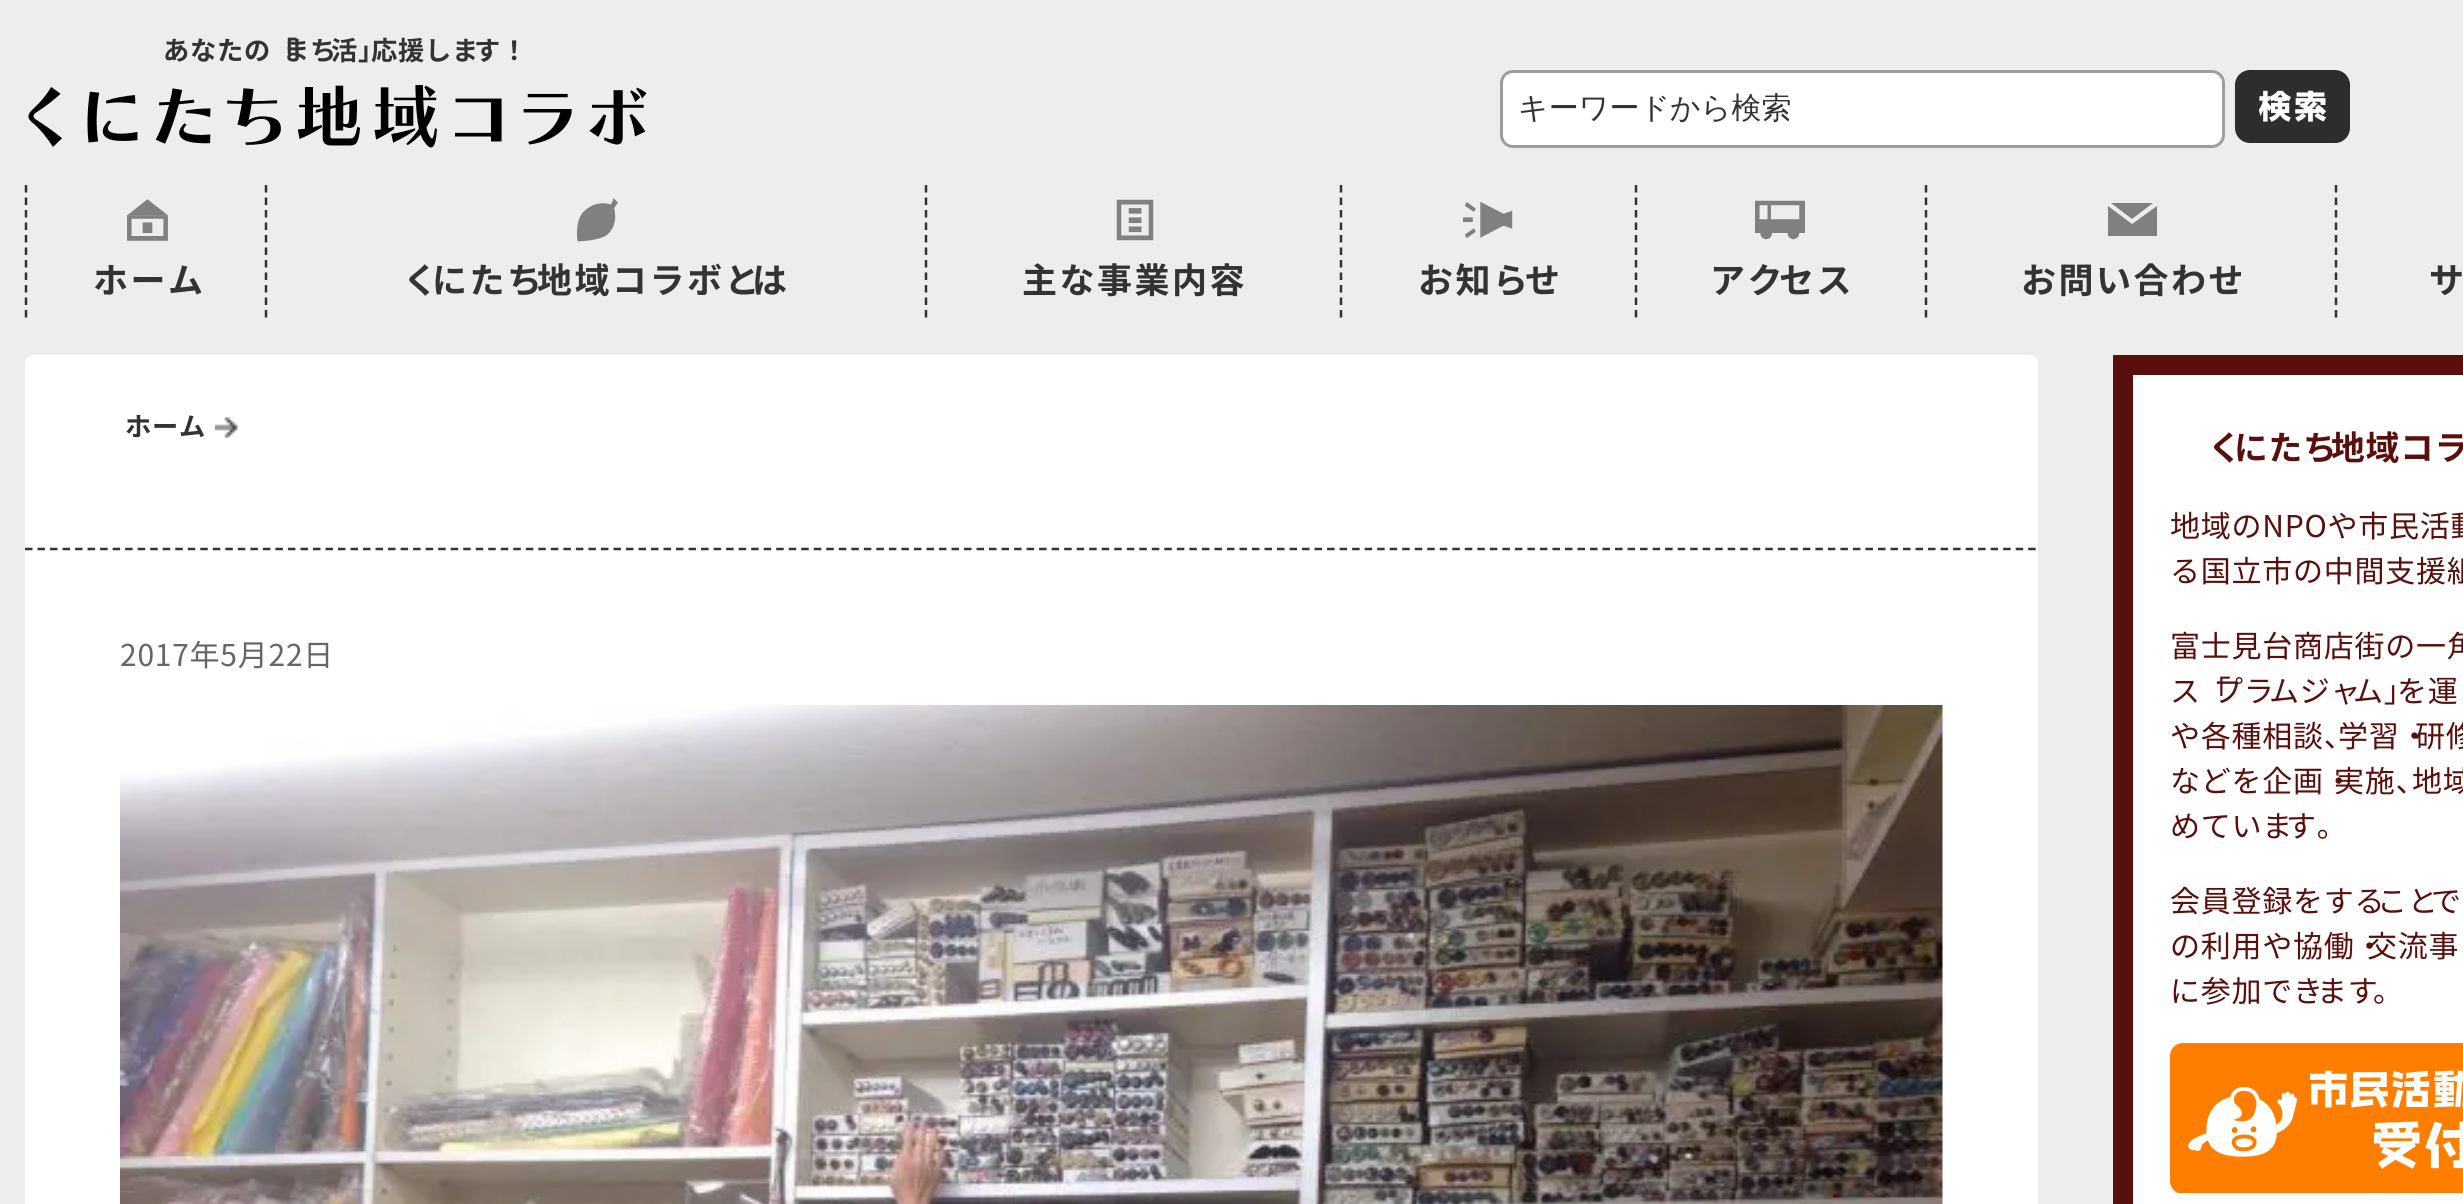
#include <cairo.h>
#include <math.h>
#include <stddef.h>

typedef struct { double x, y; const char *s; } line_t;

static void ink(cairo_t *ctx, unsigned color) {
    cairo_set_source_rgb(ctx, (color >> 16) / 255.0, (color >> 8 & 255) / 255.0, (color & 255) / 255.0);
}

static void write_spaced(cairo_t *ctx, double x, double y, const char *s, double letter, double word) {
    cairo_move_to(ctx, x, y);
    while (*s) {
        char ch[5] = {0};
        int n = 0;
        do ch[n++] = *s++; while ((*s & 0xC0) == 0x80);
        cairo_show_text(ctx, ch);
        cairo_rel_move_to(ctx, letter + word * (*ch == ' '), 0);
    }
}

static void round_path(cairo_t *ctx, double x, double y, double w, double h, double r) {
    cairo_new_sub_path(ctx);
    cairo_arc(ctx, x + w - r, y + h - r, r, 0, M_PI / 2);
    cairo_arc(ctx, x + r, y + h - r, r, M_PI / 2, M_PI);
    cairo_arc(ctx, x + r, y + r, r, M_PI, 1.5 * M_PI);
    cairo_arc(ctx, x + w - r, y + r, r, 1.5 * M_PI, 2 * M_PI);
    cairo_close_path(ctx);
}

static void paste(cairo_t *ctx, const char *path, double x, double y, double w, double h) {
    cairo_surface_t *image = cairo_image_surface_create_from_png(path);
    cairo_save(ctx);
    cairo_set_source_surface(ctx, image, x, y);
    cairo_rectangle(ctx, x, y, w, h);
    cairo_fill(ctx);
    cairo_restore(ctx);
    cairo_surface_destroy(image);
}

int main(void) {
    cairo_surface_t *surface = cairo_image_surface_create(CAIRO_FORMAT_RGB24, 2463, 1204);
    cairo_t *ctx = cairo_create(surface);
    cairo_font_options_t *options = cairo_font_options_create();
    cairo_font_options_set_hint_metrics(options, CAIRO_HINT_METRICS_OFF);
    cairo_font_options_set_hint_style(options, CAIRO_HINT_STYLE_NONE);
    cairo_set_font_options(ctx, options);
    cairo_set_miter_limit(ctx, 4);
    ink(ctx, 0xEDEDED);
    cairo_paint(ctx);
    cairo_select_font_face(ctx, "Noto Sans JP", CAIRO_FONT_SLANT_NORMAL, CAIRO_FONT_WEIGHT_BOLD);
    cairo_set_font_size(ctx, 26.25);
    ink(ctx, 0x333333);
    write_spaced(ctx, 163, 60, "あなたの「", 0.75, 0);
    write_spaced(ctx, 283, 60, "まち", 0.75, 0);
    write_spaced(ctx, 331, 60, "活」", 0.75, 0);
    write_spaced(ctx, 371, 60, "応援しま", 0.75, 0);
    write_spaced(ctx, 474, 60, "す！", 0.75, 0);
    paste(ctx, "media/1.png", 28, 85, 619, 63);
    ink(ctx, 0xFFFFFF);
    round_path(ctx, 1501.5, 71.5, 722, 75, 11.5);
    cairo_fill_preserve(ctx);
    ink(ctx, 0x9E9E9E);
    cairo_set_line_width(ctx, 3);
    cairo_stroke(ctx);
    cairo_select_font_face(ctx, "WenQuanYi Zen Hei Medium", CAIRO_FONT_SLANT_NORMAL, CAIRO_FONT_WEIGHT_NORMAL);
    cairo_set_font_size(ctx, 30);
    ink(ctx, 0x333333);
    cairo_move_to(ctx, 1518, 118);
    cairo_show_text(ctx, "キーワードから検索");
    paste(ctx, "media/2.png", 2235, 70, 115, 73);
    paste(ctx, "media/3.png", 127, 199, 41, 42);
    cairo_new_path(ctx);
    cairo_move_to(ctx, 26, 185);
    cairo_line_to(ctx, 26, 317.5);
    cairo_set_line_width(ctx, 2.5);
    cairo_set_dash(ctx, (double[]){7.5, 5}, 2, 0);
    cairo_stroke(ctx);
    cairo_select_font_face(ctx, "Noto Sans JP", CAIRO_FONT_SLANT_NORMAL, CAIRO_FONT_WEIGHT_BOLD);
    cairo_set_font_size(ctx, 35);
    write_spaced(ctx, 93, 293, "ホーム", 2.5, 0);
    paste(ctx, "media/4.png", 577, 198, 41, 44);
    cairo_new_path(ctx);
    cairo_move_to(ctx, 266, 185);
    cairo_line_to(ctx, 266, 317.5);
    cairo_stroke(ctx);
    write_spaced(ctx, 403, 293, "く", 2.5, 0);
    write_spaced(ctx, 432, 293, "にたち", 2.5, 0);
    write_spaced(ctx, 537, 293, "地域コラボと", 2.5, 0);
    write_spaced(ctx, 752, 293, "は", 2.5, 0);
    paste(ctx, "media/5.png", 1116, 199, 38, 42);
    cairo_new_path(ctx);
    cairo_move_to(ctx, 926, 185);
    cairo_line_to(ctx, 926, 317.5);
    cairo_stroke(ctx);
    write_spaced(ctx, 1022, 293, "主な事業内容", 2.5, 0);
    paste(ctx, "media/6.png", 1463, 201, 50, 38);
    cairo_new_path(ctx);
    cairo_move_to(ctx, 1341, 185);
    cairo_line_to(ctx, 1341, 317.5);
    cairo_stroke(ctx);
    write_spaced(ctx, 1418, 293, "お知ら", 2.5, 0);
    write_spaced(ctx, 1525, 293, "せ", 2.5, 0);
    paste(ctx, "media/7.png", 1755, 200, 50, 40);
    cairo_new_path(ctx);
    cairo_move_to(ctx, 1636, 185);
    cairo_line_to(ctx, 1636, 317.5);
    cairo_stroke(ctx);
    write_spaced(ctx, 1710, 293, "アク", 2.5, 0);
    write_spaced(ctx, 1779, 293, "セス", 2.5, 0);
    ink(ctx, 0x808080);
    cairo_new_path(ctx);
    cairo_move_to(ctx, 2132, 224);
    cairo_line_to(ctx, 2108, 206);
    cairo_line_to(ctx, 2108, 236);
    cairo_line_to(ctx, 2157, 236);
    cairo_line_to(ctx, 2157, 206);
    cairo_close_path(ctx);
    cairo_fill(ctx);
    cairo_new_path(ctx);
    cairo_move_to(ctx, 2153, 203);
    cairo_line_to(ctx, 2111, 203);
    cairo_line_to(ctx, 2132, 219);
    cairo_close_path(ctx);
    cairo_fill(ctx);
    cairo_new_path(ctx);
    cairo_move_to(ctx, 1926, 185);
    cairo_line_to(ctx, 1926, 317.5);
    ink(ctx, 0x333333);
    cairo_stroke(ctx);
    write_spaced(ctx, 2021, 293, "お問い合わせ", 2.5, 0);
    cairo_new_path(ctx);
    cairo_move_to(ctx, 2336, 185);
    cairo_line_to(ctx, 2336, 317.5);
    cairo_stroke(ctx);
    write_spaced(ctx, 2429, 293, "サ", 2.5, 0);
    ink(ctx, 0xFFFFFF);
    round_path(ctx, 25, 355, 2013, 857, 8);
    cairo_fill(ctx);
    paste(ctx, "media/8.png", 215, 417, 23, 21);
    cairo_set_font_size(ctx, 26.25);
    ink(ctx, 0x333333);
    write_spaced(ctx, 125, 436, "ホーム", 0.75, 0);
    cairo_new_path(ctx);
    cairo_move_to(ctx, 25, 549);
    cairo_line_to(ctx, 2037.5, 549);
    cairo_set_dash(ctx, (double[]){7.5, 5.02}, 2, 0);
    cairo_stroke(ctx);
    cairo_select_font_face(ctx, "Noto Sans JP", CAIRO_FONT_SLANT_NORMAL, CAIRO_FONT_WEIGHT_NORMAL);
    cairo_set_font_size(ctx, 30);
    ink(ctx, 0x666666);
    write_spaced(ctx, 120, 666, "2017年5月22日", 0.75, 0);
    paste(ctx, "media/9.png", 120, 705, 1823, 499);
    ink(ctx, 0x59100C);
    cairo_rectangle(ctx, 2113, 355, 350, 849);
    cairo_fill(ctx);
    ink(ctx, 0xFFFFFF);
    cairo_rectangle(ctx, 2133, 375, 330, 829);
    cairo_fill(ctx);
    cairo_select_font_face(ctx, "Noto Sans JP", CAIRO_FONT_SLANT_NORMAL, CAIRO_FONT_WEIGHT_BOLD);
    cairo_set_font_size(ctx, 33.75);
    ink(ctx, 0x59100C);
    write_spaced(ctx, 2208, 460, "く", 0.75, 0);
    write_spaced(ctx, 2234, 460, "にたち", 0.75, 0);
    write_spaced(ctx, 2331, 460, "地域コラ", 0.75, 0);
    cairo_select_font_face(ctx, "Noto Sans JP", CAIRO_FONT_SLANT_NORMAL, CAIRO_FONT_WEIGHT_NORMAL);
    cairo_set_font_size(ctx, 30);
    {
        static const line_t items[] = {
            {2170, 537, "地域のNPOや市民活動"},
            {2170, 582, "る国立市の中間支援組"},
            {2170, 657, "富士見台商店街の一角"},
            {2170, 702, "ス「"},
            {2213, 702, "プラ"},
            {2269, 702, "ムジャ"},
            {2353, 702, "ム」"},
            {2397, 702, "を運"},
            {2170, 747, "や各種相談、"},
            {2338, 747, "学習・"},
            {2415, 747, "研修"},
            {2170, 792, "などを企画・"},
            {2334, 792, "実施、"},
            {2412, 792, "地域"},
            {2170, 837, "めていま"},
            {2286, 837, "す。"},
            {2170, 912, "会員登録をする"},
            {2377, 912, "こと"},
            {2431, 912, "で"},
            {2170, 957, "の利用や協働・"},
            {2367, 957, "交流事"},
            {2170, 1002, "に参加でき"},
            {2317, 1002, "ます"},
            {2373, 1002, "。"},
        };
        for (size_t i = 0; i < sizeof items / sizeof *items; i++) {
            write_spaced(ctx, items[i].x, items[i].y, items[i].s, 0.75, 0);
        }
    }
    paste(ctx, "media/10.png", 2170, 1043, 293, 150);
    cairo_surface_write_to_png(surface, "image.png");
    cairo_font_options_destroy(options);
    cairo_destroy(ctx);
    cairo_surface_destroy(surface);
    return 0;
}
